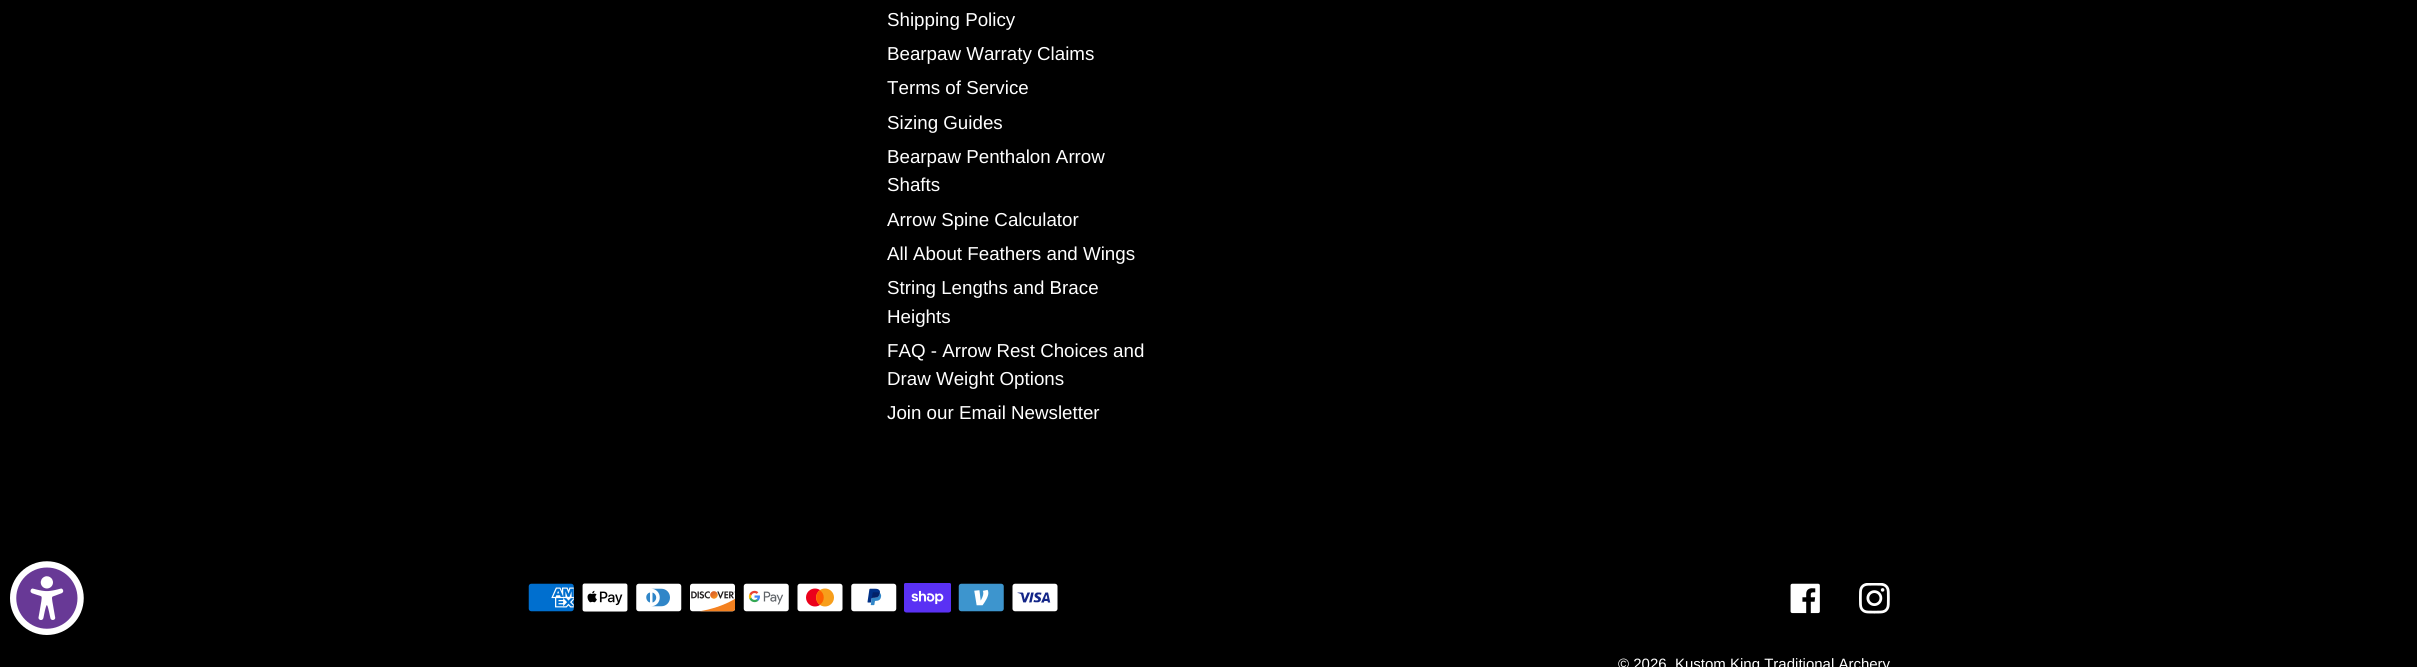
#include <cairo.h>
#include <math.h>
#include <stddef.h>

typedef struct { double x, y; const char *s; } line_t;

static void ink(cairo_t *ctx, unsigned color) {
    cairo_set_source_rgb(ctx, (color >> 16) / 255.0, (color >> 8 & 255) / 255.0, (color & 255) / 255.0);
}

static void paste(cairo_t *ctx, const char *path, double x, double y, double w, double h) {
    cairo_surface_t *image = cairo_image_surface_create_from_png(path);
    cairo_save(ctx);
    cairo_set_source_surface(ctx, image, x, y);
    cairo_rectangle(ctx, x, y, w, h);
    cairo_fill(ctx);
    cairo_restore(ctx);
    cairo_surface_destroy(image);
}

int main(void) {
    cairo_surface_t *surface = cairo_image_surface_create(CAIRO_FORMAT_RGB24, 2417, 667);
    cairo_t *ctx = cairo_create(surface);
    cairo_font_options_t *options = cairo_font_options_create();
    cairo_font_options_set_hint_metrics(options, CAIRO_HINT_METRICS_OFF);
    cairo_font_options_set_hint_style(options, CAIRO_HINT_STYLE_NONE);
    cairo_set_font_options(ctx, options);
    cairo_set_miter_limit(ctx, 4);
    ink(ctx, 0x000000);
    cairo_paint(ctx);
    paste(ctx, "media/1.png", 10, 561, 74, 74);
    cairo_select_font_face(ctx, "Liberation Sans", CAIRO_FONT_SLANT_NORMAL, CAIRO_FONT_WEIGHT_NORMAL);
    cairo_set_font_size(ctx, 18.75);
    ink(ctx, 0xFFFFFF);
    {
        static const line_t items[] = {
            {887, 26, "Shipping Policy"},
            {887, 60, "Bearpaw Warraty Claims"},
            {887, 94, "Terms of Service"},
            {887, 129, "Sizing Guides"},
            {887, 163, "Bearpaw Penthalon Arrow"},
            {887, 191, "Shafts"},
            {887, 226, "Arrow Spine Calculator"},
            {887, 260, "All About Feathers and Wings"},
            {887, 294, "String Lengths and Brace"},
            {887, 323, "Heights"},
            {887, 357, "FAQ - Arrow Rest Choices and"},
            {887, 385, "Draw Weight Options"},
            {887, 419, "Join our Email Newsletter"},
        };
        for (size_t i = 0; i < sizeof items / sizeof *items; i++) {
            cairo_move_to(ctx, items[i].x, items[i].y);
            cairo_show_text(ctx, items[i].s);
        }
    }
    paste(ctx, "media/2.png", 528, 583, 46, 29);
    paste(ctx, "media/3.png", 582, 583, 46, 29);
    paste(ctx, "media/4.png", 636, 583, 46, 29);
    paste(ctx, "media/5.png", 690, 583, 46, 29);
    paste(ctx, "media/6.png", 743, 583, 46, 29);
    paste(ctx, "media/7.png", 797, 583, 46, 29);
    paste(ctx, "media/8.png", 851, 583, 46, 29);
    paste(ctx, "media/9.png", 904, 583, 47, 30);
    paste(ctx, "media/10.png", 958, 583, 46, 29);
    paste(ctx, "media/11.png", 1012, 583, 46, 29);
    paste(ctx, "media/12.png", 1790, 583, 30, 31);
    paste(ctx, "media/13.png", 1859, 583, 31, 31);
    cairo_set_font_size(ctx, 15);
    cairo_move_to(ctx, 1618, 669);
    cairo_show_text(ctx, "© 2026");
    cairo_move_to(ctx, 1675, 669);
    cairo_show_text(ctx, "Kustom King Traditional Archery");
    cairo_surface_write_to_png(surface, "image.png");
    cairo_font_options_destroy(options);
    cairo_destroy(ctx);
    cairo_surface_destroy(surface);
    return 0;
}
